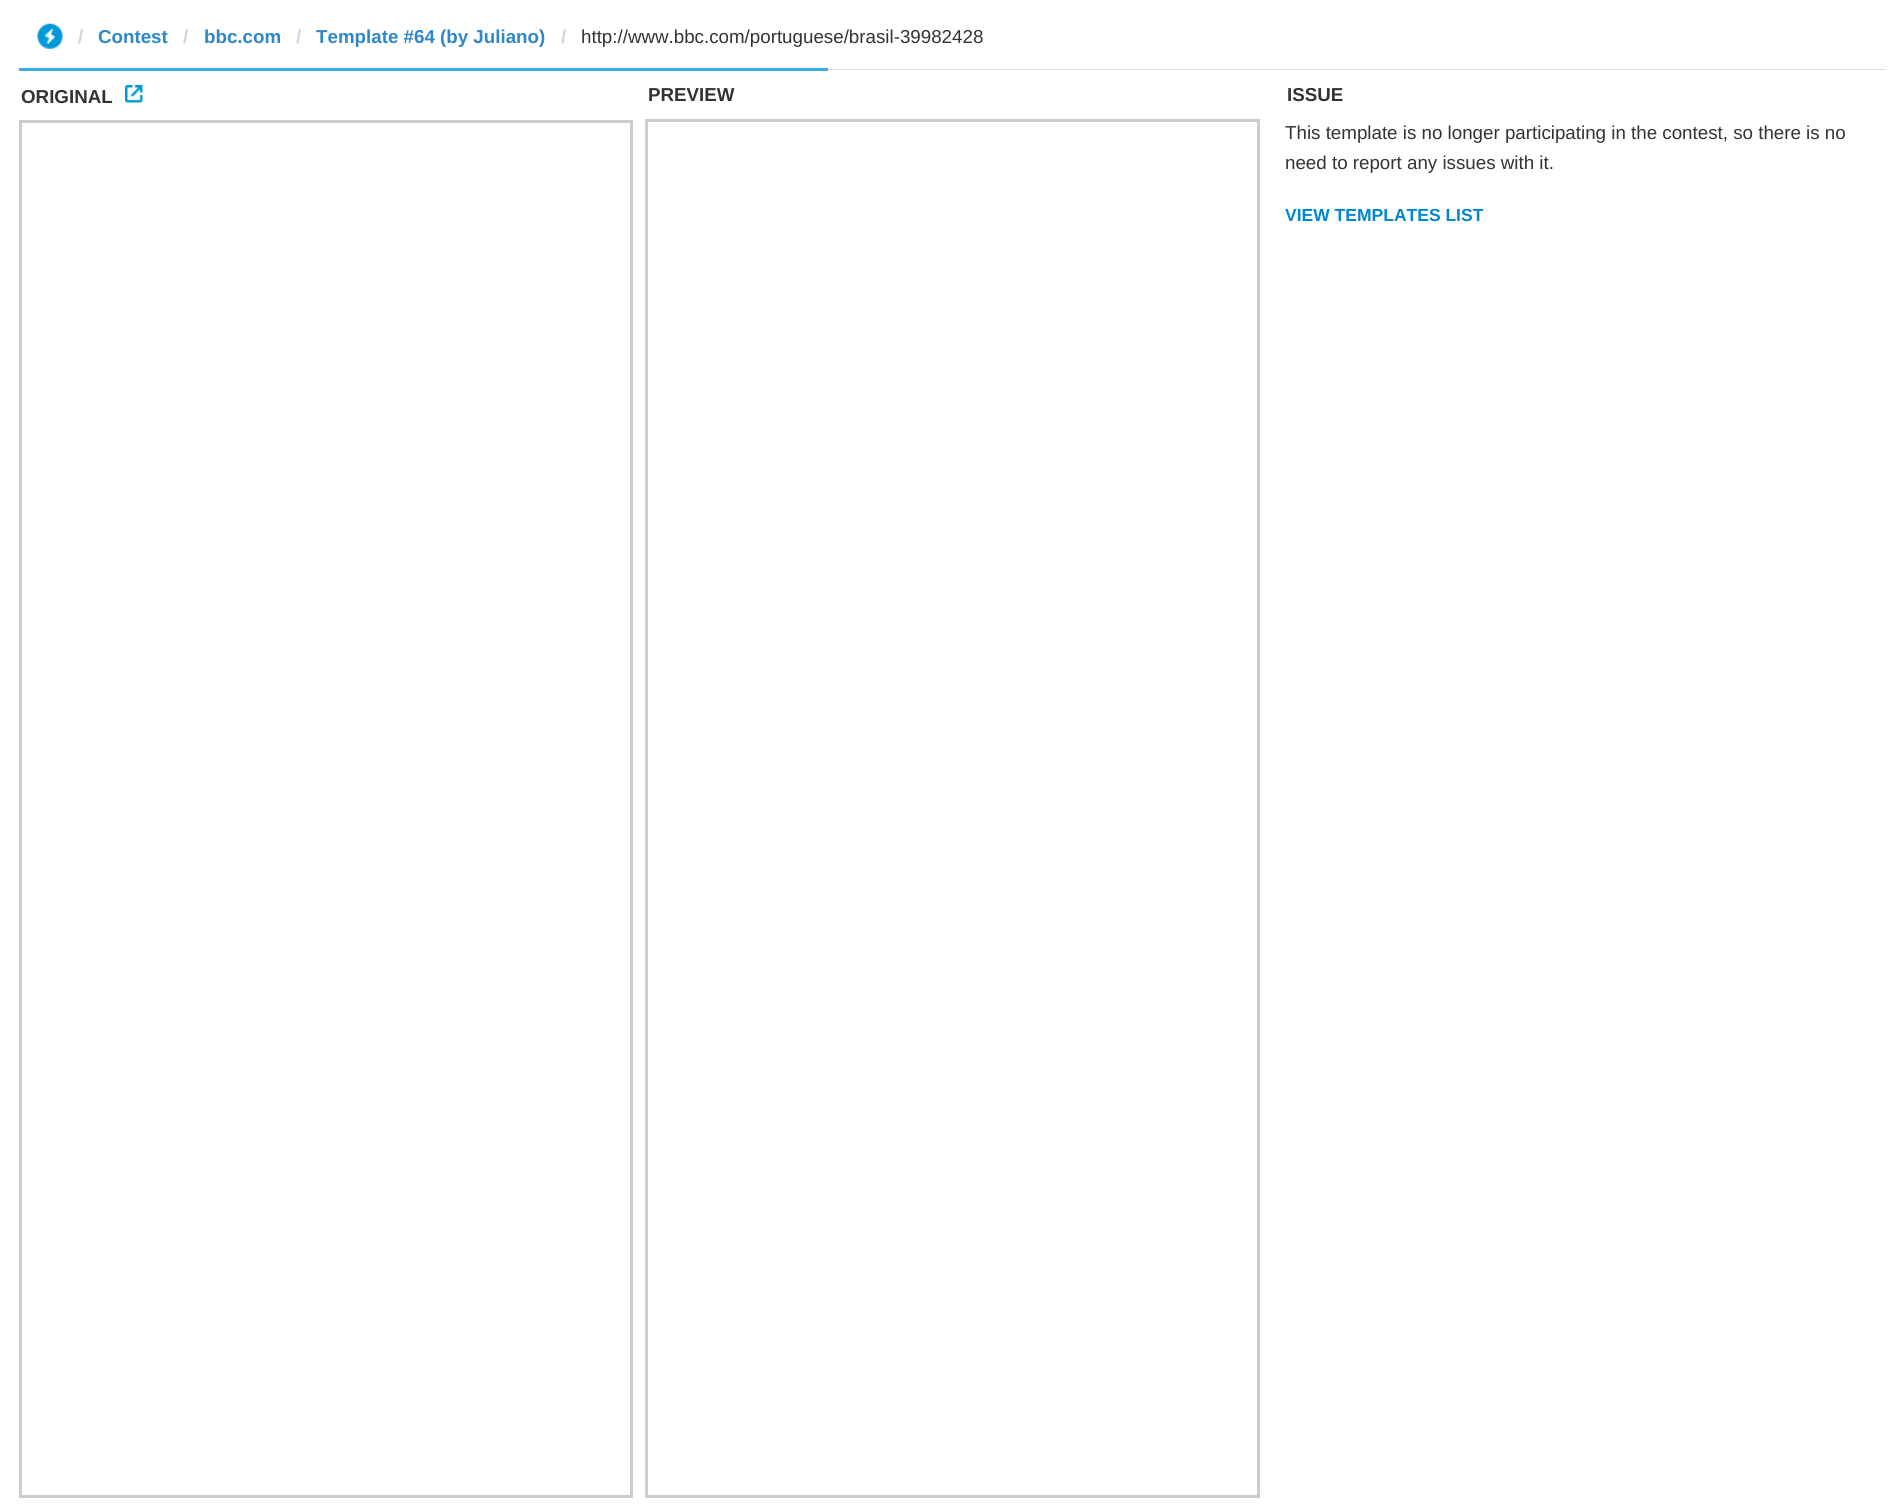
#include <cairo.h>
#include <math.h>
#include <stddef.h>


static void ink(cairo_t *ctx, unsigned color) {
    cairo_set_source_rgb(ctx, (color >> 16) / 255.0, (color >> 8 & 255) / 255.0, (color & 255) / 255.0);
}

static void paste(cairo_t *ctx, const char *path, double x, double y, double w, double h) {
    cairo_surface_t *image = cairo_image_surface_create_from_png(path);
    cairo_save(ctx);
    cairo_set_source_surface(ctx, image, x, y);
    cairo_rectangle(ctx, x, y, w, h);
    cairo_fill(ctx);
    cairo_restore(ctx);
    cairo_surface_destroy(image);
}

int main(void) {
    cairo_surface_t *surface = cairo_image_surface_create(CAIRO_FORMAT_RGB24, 1904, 1509);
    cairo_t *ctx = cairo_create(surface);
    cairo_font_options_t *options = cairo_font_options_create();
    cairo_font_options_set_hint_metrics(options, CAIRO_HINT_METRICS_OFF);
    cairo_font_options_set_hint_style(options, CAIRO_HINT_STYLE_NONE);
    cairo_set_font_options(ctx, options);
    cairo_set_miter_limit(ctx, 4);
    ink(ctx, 0xFFFFFF);
    cairo_paint(ctx);
    ink(ctx, 0xE0E0E0);
    cairo_rectangle(ctx, 828, 69, 1058, 1);
    cairo_fill(ctx);
    paste(ctx, "media/1.png", 37, 23, 26, 26);
    cairo_select_font_face(ctx, "Liberation Sans", CAIRO_FONT_SLANT_NORMAL, CAIRO_FONT_WEIGHT_BOLD);
    cairo_set_font_size(ctx, 18.75);
    ink(ctx, 0xD4D4D4);
    cairo_move_to(ctx, 78, 43);
    cairo_show_text(ctx, "/");
    ink(ctx, 0x2E87CA);
    cairo_move_to(ctx, 98, 43);
    cairo_show_text(ctx, "Contest");
    ink(ctx, 0xD4D4D4);
    cairo_move_to(ctx, 183, 43);
    cairo_show_text(ctx, "/");
    ink(ctx, 0x2E87CA);
    cairo_move_to(ctx, 204, 43);
    cairo_show_text(ctx, "bbc.com");
    ink(ctx, 0xD4D4D4);
    cairo_move_to(ctx, 296, 43);
    cairo_show_text(ctx, "/");
    ink(ctx, 0x2E87CA);
    cairo_move_to(ctx, 316, 43);
    cairo_show_text(ctx, "Template #64 (by Juliano)");
    ink(ctx, 0xD4D4D4);
    cairo_move_to(ctx, 561, 43);
    cairo_show_text(ctx, "/");
    cairo_select_font_face(ctx, "Liberation Sans", CAIRO_FONT_SLANT_NORMAL, CAIRO_FONT_WEIGHT_NORMAL);
    ink(ctx, 0x333333);
    cairo_move_to(ctx, 581, 43);
    cairo_show_text(ctx, "http://www.bbc.com/portuguese/brasil-39982428");
    ink(ctx, 0x39ADE7);
    cairo_rectangle(ctx, 19, 68, 809, 3);
    cairo_fill(ctx);
    cairo_select_font_face(ctx, "Liberation Sans", CAIRO_FONT_SLANT_NORMAL, CAIRO_FONT_WEIGHT_BOLD);
    ink(ctx, 0x333333);
    cairo_move_to(ctx, 21, 103);
    cairo_show_text(ctx, "ORIGINAL");
    paste(ctx, "media/2.png", 125, 85, 18, 18);
    cairo_rectangle(ctx, 20.5, 121.5, 611, 1375);
    ink(ctx, 0xCCCCCC);
    cairo_set_line_width(ctx, 3);
    cairo_stroke(ctx);
    ink(ctx, 0x333333);
    cairo_move_to(ctx, 648, 101);
    cairo_show_text(ctx, "PREVIEW");
    cairo_rectangle(ctx, 646.5, 120.5, 612, 1376);
    ink(ctx, 0xCCCCCC);
    cairo_stroke(ctx);
    ink(ctx, 0x333333);
    cairo_move_to(ctx, 1287, 101);
    cairo_show_text(ctx, "ISSUE");
    cairo_select_font_face(ctx, "Liberation Sans", CAIRO_FONT_SLANT_NORMAL, CAIRO_FONT_WEIGHT_NORMAL);
    cairo_move_to(ctx, 1285, 139);
    cairo_show_text(ctx, "This template is no longer participating in the contest, so there is no");
    cairo_move_to(ctx, 1285, 169);
    cairo_show_text(ctx, "need to report any issues with it.");
    cairo_select_font_face(ctx, "Liberation Sans", CAIRO_FONT_SLANT_NORMAL, CAIRO_FONT_WEIGHT_BOLD);
    cairo_set_font_size(ctx, 17.5);
    ink(ctx, 0x0088CC);
    cairo_move_to(ctx, 1285, 221);
    cairo_show_text(ctx, "VIEW TEMPLATES LIST");
    cairo_surface_write_to_png(surface, "image.png");
    cairo_font_options_destroy(options);
    cairo_destroy(ctx);
    cairo_surface_destroy(surface);
    return 0;
}
